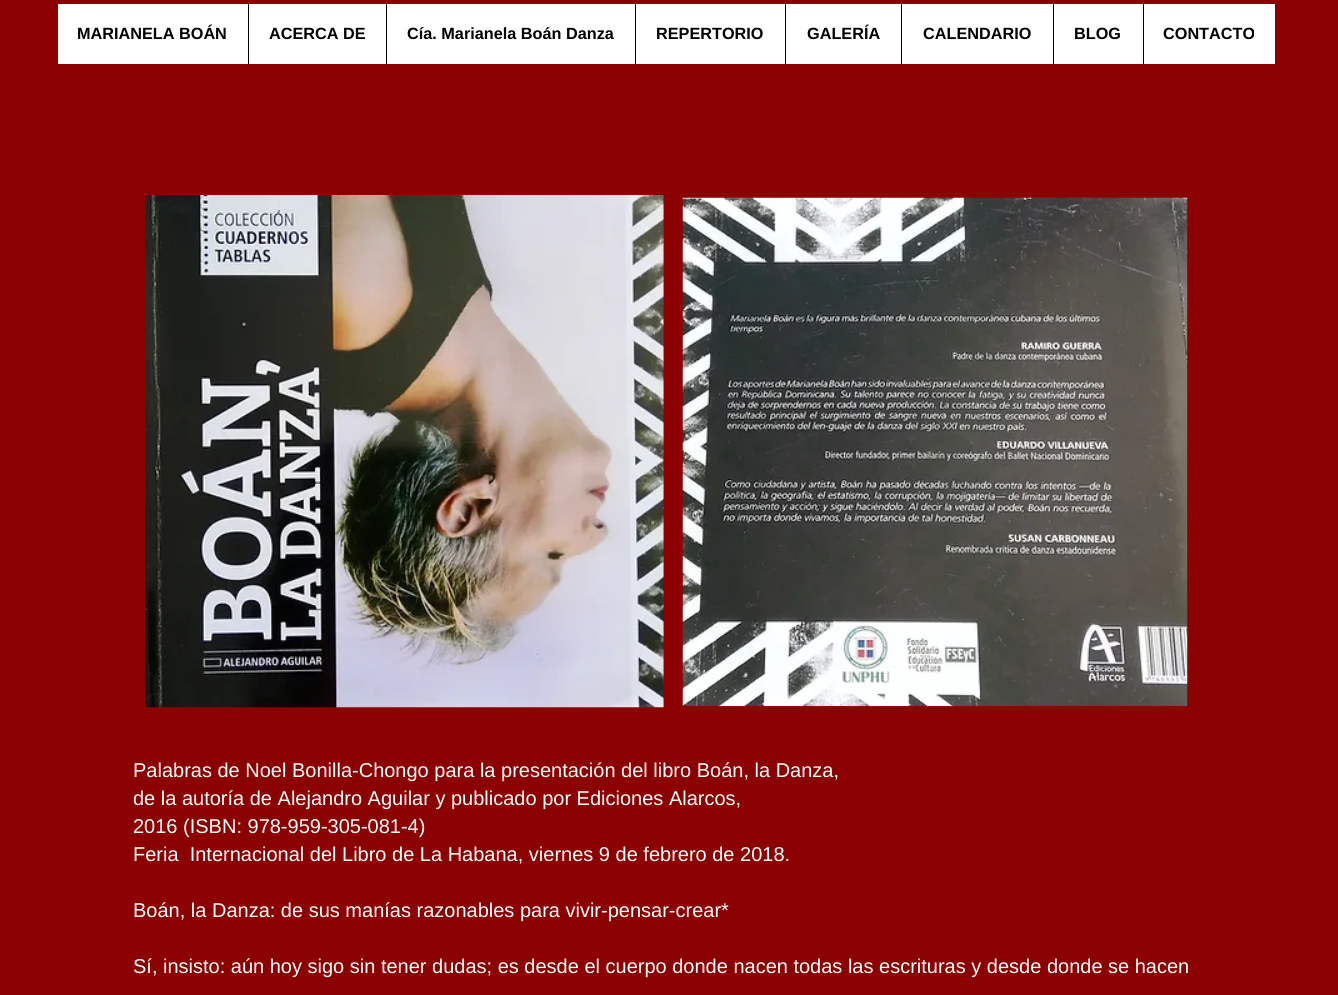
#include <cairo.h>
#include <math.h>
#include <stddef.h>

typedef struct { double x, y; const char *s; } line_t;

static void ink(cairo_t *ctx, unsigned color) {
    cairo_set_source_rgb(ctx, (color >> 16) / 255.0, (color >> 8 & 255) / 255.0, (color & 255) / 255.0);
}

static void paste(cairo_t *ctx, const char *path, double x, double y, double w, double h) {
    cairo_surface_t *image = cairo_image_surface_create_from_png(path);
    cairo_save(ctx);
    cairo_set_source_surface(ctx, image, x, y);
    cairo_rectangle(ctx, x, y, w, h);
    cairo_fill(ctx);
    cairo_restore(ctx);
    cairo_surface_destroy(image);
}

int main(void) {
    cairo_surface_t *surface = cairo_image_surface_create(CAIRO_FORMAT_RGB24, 1338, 995);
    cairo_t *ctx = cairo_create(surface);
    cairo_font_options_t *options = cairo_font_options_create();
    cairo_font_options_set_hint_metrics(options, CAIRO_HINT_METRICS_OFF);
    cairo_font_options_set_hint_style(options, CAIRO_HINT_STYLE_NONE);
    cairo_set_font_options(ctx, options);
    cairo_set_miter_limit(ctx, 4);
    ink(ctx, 0x8B0000);
    cairo_paint(ctx);
    ink(ctx, 0xFFFFFF);
    cairo_rectangle(ctx, 58, 4, 1217, 60);
    cairo_fill(ctx);
    cairo_select_font_face(ctx, "Liberation Sans", CAIRO_FONT_SLANT_NORMAL, CAIRO_FONT_WEIGHT_BOLD);
    cairo_set_font_size(ctx, 16.25);
    ink(ctx, 0x000000);
    cairo_move_to(ctx, 77, 39);
    cairo_show_text(ctx, "MARIANELA BOÁN");
    cairo_rectangle(ctx, 248, 4, 1, 60);
    cairo_fill(ctx);
    cairo_move_to(ctx, 269, 39);
    cairo_show_text(ctx, "ACERCA DE");
    cairo_rectangle(ctx, 386, 4, 1, 60);
    cairo_fill(ctx);
    cairo_move_to(ctx, 407, 39);
    cairo_show_text(ctx, "Cía. Marianela Boán Danza");
    cairo_rectangle(ctx, 635, 4, 1, 60);
    cairo_fill(ctx);
    cairo_move_to(ctx, 656, 39);
    cairo_show_text(ctx, "REPERTORIO");
    cairo_rectangle(ctx, 785, 4, 1, 60);
    cairo_fill(ctx);
    cairo_move_to(ctx, 807, 39);
    cairo_show_text(ctx, "GALERÍA");
    cairo_rectangle(ctx, 901, 4, 1, 60);
    cairo_fill(ctx);
    cairo_move_to(ctx, 923, 39);
    cairo_show_text(ctx, "CALENDARIO");
    cairo_rectangle(ctx, 1053, 4, 1, 60);
    cairo_fill(ctx);
    cairo_move_to(ctx, 1074, 39);
    cairo_show_text(ctx, "BLOG");
    cairo_rectangle(ctx, 1143, 4, 1, 60);
    cairo_fill(ctx);
    cairo_move_to(ctx, 1163, 39);
    cairo_show_text(ctx, "CONTACTO");
    paste(ctx, "media/1.png", 145, 195, 519, 513);
    paste(ctx, "media/2.png", 682, 197, 506, 510);
    cairo_select_font_face(ctx, "Liberation Sans", CAIRO_FONT_SLANT_NORMAL, CAIRO_FONT_WEIGHT_NORMAL);
    cairo_set_font_size(ctx, 20);
    ink(ctx, 0xFFFFFF);
    {
        static const line_t items[] = {
            {133, 777, "Palabras de Noel Bonilla-Chongo para la presentación del libro Boán, la Danza,"},
            {133, 805, "de la autoría de Alejandro Aguilar y publicado por Ediciones Alarcos,"},
            {133, 833, "2016 (ISBN: 978-959-305-081-4)"},
            {133, 861, "Feria  Internacional del Libro de La Habana, viernes 9 de febrero de 2018."},
            {133, 917, "Boán, la Danza: de sus manías razonables para vivir-pensar-crear*"},
            {133, 973, "Sí, insisto: aún hoy sigo sin tener dudas; es desde el cuerpo donde nacen todas las escrituras y desde donde se hacen"},
        };
        for (size_t i = 0; i < sizeof items / sizeof *items; i++) {
            cairo_move_to(ctx, items[i].x, items[i].y);
            cairo_show_text(ctx, items[i].s);
        }
    }
    cairo_surface_write_to_png(surface, "image.png");
    cairo_font_options_destroy(options);
    cairo_destroy(ctx);
    cairo_surface_destroy(surface);
    return 0;
}
